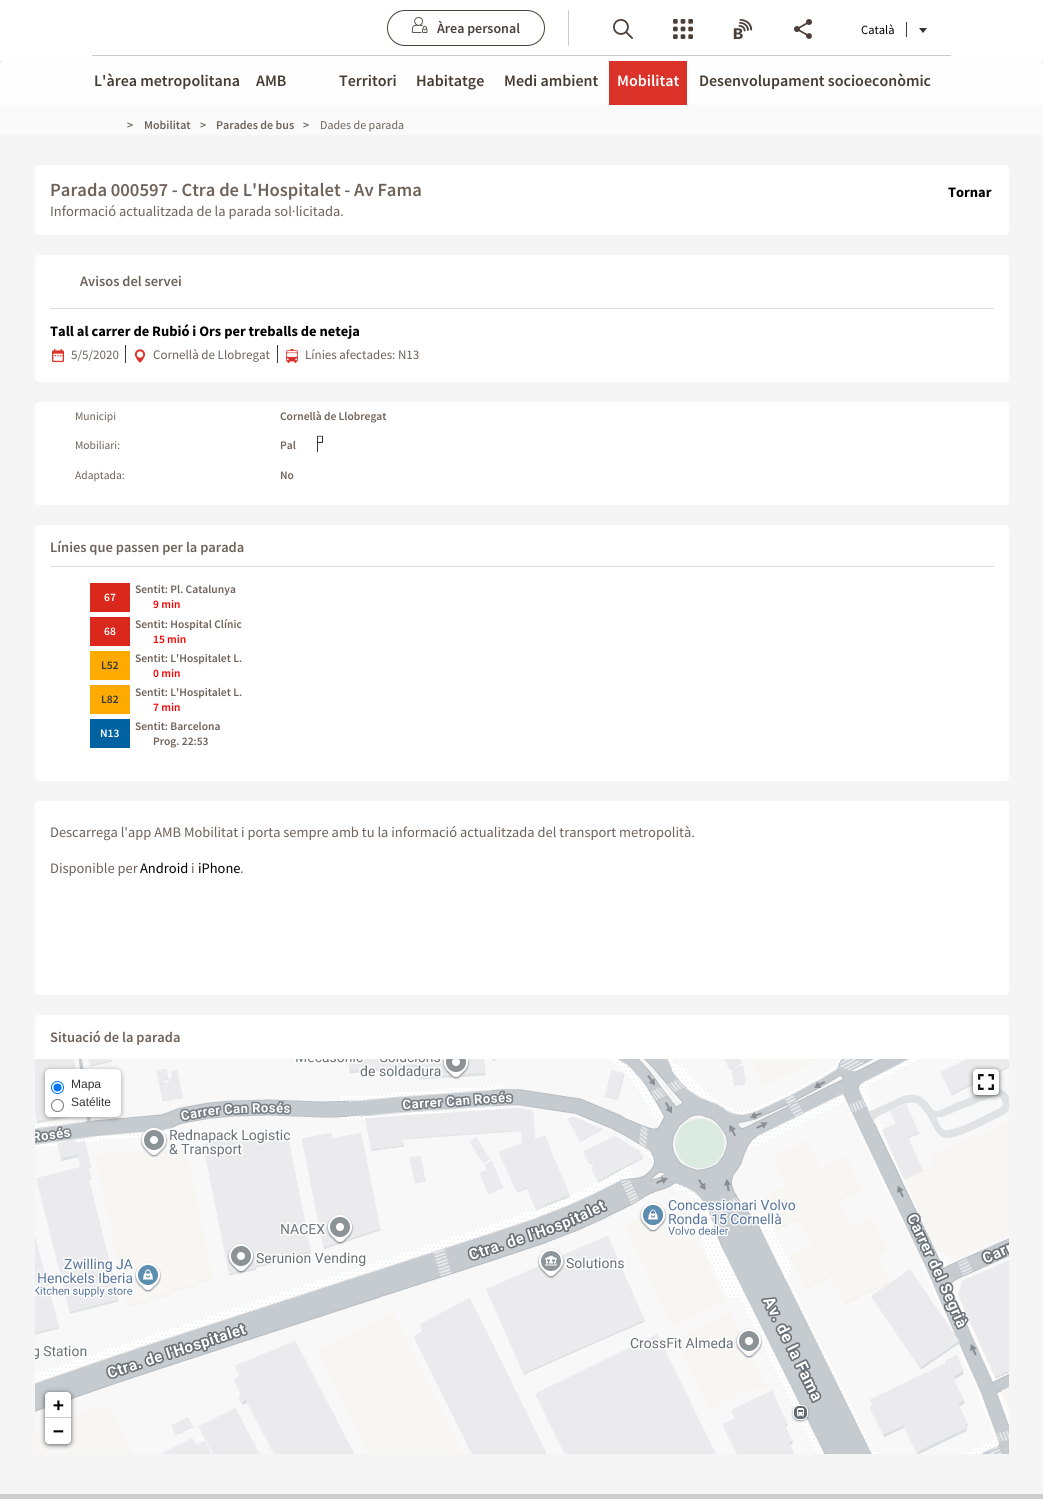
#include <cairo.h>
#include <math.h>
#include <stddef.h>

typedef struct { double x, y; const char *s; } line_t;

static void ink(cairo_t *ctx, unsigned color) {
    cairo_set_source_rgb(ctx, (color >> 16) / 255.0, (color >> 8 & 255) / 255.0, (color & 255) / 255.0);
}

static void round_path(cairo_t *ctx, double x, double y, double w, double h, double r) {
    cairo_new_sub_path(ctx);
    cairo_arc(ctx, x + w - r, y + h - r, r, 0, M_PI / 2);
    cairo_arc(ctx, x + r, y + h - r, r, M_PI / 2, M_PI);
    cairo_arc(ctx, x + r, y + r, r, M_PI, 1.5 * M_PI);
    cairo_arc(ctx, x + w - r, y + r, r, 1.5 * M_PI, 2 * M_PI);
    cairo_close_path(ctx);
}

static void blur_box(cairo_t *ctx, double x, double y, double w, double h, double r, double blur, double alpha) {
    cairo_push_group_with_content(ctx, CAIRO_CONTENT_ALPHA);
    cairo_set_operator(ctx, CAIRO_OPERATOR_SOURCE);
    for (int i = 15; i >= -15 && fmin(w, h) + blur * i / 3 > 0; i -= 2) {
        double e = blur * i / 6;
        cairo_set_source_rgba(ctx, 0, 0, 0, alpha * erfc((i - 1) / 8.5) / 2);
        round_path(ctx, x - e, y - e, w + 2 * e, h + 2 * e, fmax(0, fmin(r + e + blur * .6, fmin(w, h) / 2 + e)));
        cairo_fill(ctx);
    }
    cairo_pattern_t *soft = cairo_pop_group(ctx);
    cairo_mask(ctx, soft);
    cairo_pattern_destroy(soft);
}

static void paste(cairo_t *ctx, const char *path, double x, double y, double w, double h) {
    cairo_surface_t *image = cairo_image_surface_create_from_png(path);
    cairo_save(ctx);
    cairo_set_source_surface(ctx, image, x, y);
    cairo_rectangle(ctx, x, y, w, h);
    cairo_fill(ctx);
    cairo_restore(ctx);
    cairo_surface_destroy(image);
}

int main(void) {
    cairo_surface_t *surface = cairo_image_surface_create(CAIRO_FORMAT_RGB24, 1043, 1502);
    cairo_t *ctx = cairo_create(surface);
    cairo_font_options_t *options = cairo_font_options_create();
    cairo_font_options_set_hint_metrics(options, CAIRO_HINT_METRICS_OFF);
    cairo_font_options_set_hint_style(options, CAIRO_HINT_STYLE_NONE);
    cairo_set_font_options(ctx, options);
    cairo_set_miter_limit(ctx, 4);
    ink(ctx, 0xF5F5F5);
    cairo_paint(ctx);
    ink(ctx, 0xFFFFFF);
    cairo_rectangle(ctx, 0, 0, 1043, 61);
    cairo_fill(ctx);
    ink(ctx, 0xFEFEFE);
    cairo_rectangle(ctx, 0, 61, 1043, 44);
    cairo_fill(ctx);
    ink(ctx, 0xCCCCCC);
    blur_box(ctx, -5, 1, 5, 61, 0, 1.5, 1);
    ink(ctx, 0xFFFFFF);
    cairo_new_path(ctx);
    cairo_move_to(ctx, -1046, -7);
    cairo_line_to(ctx, -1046, 60);
    cairo_line_to(ctx, -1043, 60);
    cairo_line_to(ctx, -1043, 0);
    cairo_line_to(ctx, 0, 0);
    cairo_line_to(ctx, 0, 60);
    cairo_line_to(ctx, 3, 60);
    cairo_line_to(ctx, 3, -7);
    cairo_close_path(ctx);
    cairo_fill(ctx);
    ink(ctx, 0xCCCCCC);
    cairo_rectangle(ctx, 92, 55, 859, 1);
    cairo_fill(ctx);
    round_path(ctx, 387.5, 10.5, 157, 35, 17.5);
    ink(ctx, 0x4A4039);
    cairo_set_line_width(ctx, 1);
    cairo_stroke(ctx);
    paste(ctx, "media/1.png", 412, 17, 16, 16);
    cairo_select_font_face(ctx, "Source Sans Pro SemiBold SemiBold", CAIRO_FONT_SLANT_NORMAL, CAIRO_FONT_WEIGHT_NORMAL);
    cairo_set_font_size(ctx, 14);
    cairo_move_to(ctx, 437, 33);
    cairo_show_text(ctx, "Àrea personal");
    ink(ctx, 0xCCCCCC);
    cairo_rectangle(ctx, 568, 10, 1, 36);
    cairo_fill(ctx);
    paste(ctx, "media/2.png", 613, 19, 20, 20);
    paste(ctx, "media/3.png", 673, 19, 20, 20);
    paste(ctx, "media/4.png", 733, 19, 20, 20);
    paste(ctx, "media/5.png", 794, 19, 18, 20);
    cairo_select_font_face(ctx, "Source Sans Pro", CAIRO_FONT_SLANT_NORMAL, CAIRO_FONT_WEIGHT_NORMAL);
    cairo_set_font_size(ctx, 12.5);
    ink(ctx, 0x000000);
    cairo_move_to(ctx, 861, 34);
    cairo_show_text(ctx, "Català");
    ink(ctx, 0x3E3A37);
    cairo_rectangle(ctx, 906, 22, 1, 15);
    cairo_fill(ctx);
    ink(ctx, 0x333333);
    cairo_new_path(ctx);
    cairo_move_to(ctx, 919, 28);
    cairo_line_to(ctx, 927, 28);
    cairo_line_to(ctx, 923, 33);
    cairo_close_path(ctx);
    cairo_fill(ctx);
    ink(ctx, 0xCCCCCC);
    blur_box(ctx, 1043, 1, 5, 61, 0, 1.5, 1);
    ink(ctx, 0xFFFFFF);
    cairo_new_path(ctx);
    cairo_move_to(ctx, 1040, -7);
    cairo_line_to(ctx, 1040, 60);
    cairo_line_to(ctx, 1043, 60);
    cairo_line_to(ctx, 1043, 0);
    cairo_line_to(ctx, 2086, 0);
    cairo_line_to(ctx, 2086, 60);
    cairo_line_to(ctx, 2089, 60);
    cairo_line_to(ctx, 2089, -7);
    cairo_close_path(ctx);
    cairo_fill(ctx);
    cairo_select_font_face(ctx, "Source Sans Pro SemiBold SemiBold", CAIRO_FONT_SLANT_NORMAL, CAIRO_FONT_WEIGHT_NORMAL);
    cairo_set_font_size(ctx, 16);
    ink(ctx, 0x463C32);
    {
        static const line_t items[] = {
            {94, 86, "L'àrea metropolitana"},
            {256, 86, "AMB"},
            {339, 86, "Territori"},
            {416, 86, "Habitatge"},
            {504, 86, "Medi ambient"},
        };
        for (size_t i = 0; i < sizeof items / sizeof *items; i++) {
            cairo_move_to(ctx, items[i].x, items[i].y);
            cairo_show_text(ctx, items[i].s);
        }
    }
    ink(ctx, 0xDB322A);
    cairo_rectangle(ctx, 609, 61, 78, 44);
    cairo_fill(ctx);
    ink(ctx, 0xFFFFFF);
    cairo_move_to(ctx, 617, 86);
    cairo_show_text(ctx, "Mobilitat");
    ink(ctx, 0x463C32);
    cairo_move_to(ctx, 699, 86);
    cairo_show_text(ctx, "Desenvolupament socioeconòmic");
    ink(ctx, 0xFAFAFA);
    cairo_rectangle(ctx, 0, 105, 1043, 30);
    cairo_fill(ctx);
    cairo_set_font_size(ctx, 12);
    ink(ctx, 0x6E6259);
    {
        static const line_t items[] = {
            {127, 129, ">"},
            {144, 129, "Mobilitat"},
            {200, 129, ">"},
            {216, 129, "Parades de bus"},
            {303, 129, ">"},
        };
        for (size_t i = 0; i < sizeof items / sizeof *items; i++) {
            cairo_move_to(ctx, items[i].x, items[i].y);
            cairo_show_text(ctx, items[i].s);
        }
    }
    cairo_select_font_face(ctx, "Source Sans Pro", CAIRO_FONT_SLANT_NORMAL, CAIRO_FONT_WEIGHT_NORMAL);
    cairo_move_to(ctx, 320, 129);
    cairo_show_text(ctx, "Dades de parada");
    ink(ctx, 0xFFFFFF);
    round_path(ctx, 35, 165, 974, 70, 4);
    cairo_fill(ctx);
    cairo_select_font_face(ctx, "Source Sans Pro SemiBold SemiBold", CAIRO_FONT_SLANT_NORMAL, CAIRO_FONT_WEIGHT_NORMAL);
    cairo_set_font_size(ctx, 18.6);
    ink(ctx, 0x6E6259);
    cairo_move_to(ctx, 50, 196);
    cairo_show_text(ctx, "Parada 000597 - Ctra de L'Hospitalet - Av Fama");
    cairo_select_font_face(ctx, "Source Sans Pro", CAIRO_FONT_SLANT_NORMAL, CAIRO_FONT_WEIGHT_NORMAL);
    cairo_set_font_size(ctx, 14.45);
    cairo_move_to(ctx, 50, 216);
    cairo_show_text(ctx, "Informació actualitzada de la parada sol·licitada.");
    cairo_select_font_face(ctx, "Source Sans Pro", CAIRO_FONT_SLANT_NORMAL, CAIRO_FONT_WEIGHT_BOLD);
    ink(ctx, 0x000000);
    cairo_move_to(ctx, 948, 197);
    cairo_show_text(ctx, "Tornar");
    ink(ctx, 0xFFFFFF);
    round_path(ctx, 35, 255, 974, 127, 4);
    cairo_fill(ctx);
    ink(ctx, 0xDDDDDD);
    cairo_rectangle(ctx, 50, 308, 944, 1);
    cairo_fill(ctx);
    cairo_select_font_face(ctx, "Source Sans Pro SemiBold SemiBold", CAIRO_FONT_SLANT_NORMAL, CAIRO_FONT_WEIGHT_NORMAL);
    ink(ctx, 0x6E6259);
    cairo_move_to(ctx, 80, 286);
    cairo_show_text(ctx, "Avisos del servei");
    cairo_select_font_face(ctx, "Source Sans Pro", CAIRO_FONT_SLANT_NORMAL, CAIRO_FONT_WEIGHT_BOLD);
    ink(ctx, 0x000000);
    cairo_move_to(ctx, 50, 336);
    cairo_show_text(ctx, "Tall al carrer de Rubió i Ors per treballs de neteja");
    paste(ctx, "media/6.png", 52, 349, 12, 14);
    cairo_select_font_face(ctx, "Source Sans Pro", CAIRO_FONT_SLANT_NORMAL, CAIRO_FONT_WEIGHT_NORMAL);
    cairo_set_font_size(ctx, 13);
    ink(ctx, 0x6E6259);
    cairo_move_to(ctx, 71, 359);
    cairo_show_text(ctx, "5/5/2020");
    ink(ctx, 0x3E3A37);
    cairo_rectangle(ctx, 125, 345, 1, 18);
    cairo_fill(ctx);
    paste(ctx, "media/7.png", 134, 349, 12, 14);
    ink(ctx, 0x6E6259);
    cairo_move_to(ctx, 153, 359);
    cairo_show_text(ctx, "Cornellà de Llobregat");
    ink(ctx, 0x3E3A37);
    cairo_rectangle(ctx, 277, 345, 1, 18);
    cairo_fill(ctx);
    paste(ctx, "media/8.png", 286, 349, 12, 14);
    ink(ctx, 0x6E6259);
    cairo_move_to(ctx, 305, 359);
    cairo_show_text(ctx, "Línies afectades: N13");
    ink(ctx, 0xFFFFFF);
    round_path(ctx, 35, 402, 974, 103, 4);
    cairo_fill(ctx);
    cairo_set_font_size(ctx, 11.5);
    ink(ctx, 0x6E6259);
    cairo_move_to(ctx, 75, 420);
    cairo_show_text(ctx, "Municipi");
    cairo_select_font_face(ctx, "Source Sans Pro SemiBold SemiBold", CAIRO_FONT_SLANT_NORMAL, CAIRO_FONT_WEIGHT_NORMAL);
    cairo_move_to(ctx, 280, 420);
    cairo_show_text(ctx, "Cornellà de Llobregat");
    cairo_select_font_face(ctx, "Source Sans Pro", CAIRO_FONT_SLANT_NORMAL, CAIRO_FONT_WEIGHT_NORMAL);
    cairo_move_to(ctx, 75, 449);
    cairo_show_text(ctx, "Mobiliari:");
    cairo_select_font_face(ctx, "Source Sans Pro SemiBold SemiBold", CAIRO_FONT_SLANT_NORMAL, CAIRO_FONT_WEIGHT_NORMAL);
    cairo_move_to(ctx, 280, 449);
    cairo_show_text(ctx, "Pal");
    paste(ctx, "media/9.png", 317, 435, 6, 18);
    cairo_select_font_face(ctx, "Source Sans Pro", CAIRO_FONT_SLANT_NORMAL, CAIRO_FONT_WEIGHT_NORMAL);
    cairo_move_to(ctx, 75, 479);
    cairo_show_text(ctx, "Adaptada:");
    cairo_select_font_face(ctx, "Source Sans Pro SemiBold SemiBold", CAIRO_FONT_SLANT_NORMAL, CAIRO_FONT_WEIGHT_NORMAL);
    cairo_move_to(ctx, 280, 479);
    cairo_show_text(ctx, "No");
    ink(ctx, 0xFFFFFF);
    round_path(ctx, 35, 525, 974, 256, 4);
    cairo_fill(ctx);
    ink(ctx, 0xDDDDDD);
    cairo_rectangle(ctx, 50, 566, 944, 1);
    cairo_fill(ctx);
    cairo_set_font_size(ctx, 14.45);
    ink(ctx, 0x6E6259);
    cairo_move_to(ctx, 50, 552);
    cairo_show_text(ctx, "Línies que passen per la parada");
    ink(ctx, 0xDA291C);
    cairo_rectangle(ctx, 90, 583, 40, 29);
    cairo_fill(ctx);
    cairo_set_font_size(ctx, 11.5);
    ink(ctx, 0xFFFFFF);
    cairo_move_to(ctx, 104, 601);
    cairo_show_text(ctx, "67");
    ink(ctx, 0x6E6259);
    cairo_move_to(ctx, 135, 593);
    cairo_show_text(ctx, "Sentit: Pl. Catalunya");
    ink(ctx, 0xFF0000);
    cairo_move_to(ctx, 153, 608);
    cairo_show_text(ctx, "9 min");
    ink(ctx, 0xDA291C);
    cairo_rectangle(ctx, 90, 617, 40, 29);
    cairo_fill(ctx);
    ink(ctx, 0xFFFFFF);
    cairo_move_to(ctx, 104, 635);
    cairo_show_text(ctx, "68");
    ink(ctx, 0x6E6259);
    cairo_move_to(ctx, 135, 628);
    cairo_show_text(ctx, "Sentit: Hospital Clínic");
    ink(ctx, 0xFF0000);
    cairo_move_to(ctx, 153, 643);
    cairo_show_text(ctx, "15 min");
    ink(ctx, 0xFFAA00);
    cairo_rectangle(ctx, 90, 651, 40, 29);
    cairo_fill(ctx);
    ink(ctx, 0x343434);
    cairo_move_to(ctx, 101, 669);
    cairo_show_text(ctx, "L52");
    ink(ctx, 0x6E6259);
    cairo_move_to(ctx, 135, 662);
    cairo_show_text(ctx, "Sentit: L'Hospitalet L.");
    ink(ctx, 0xFF0000);
    cairo_move_to(ctx, 153, 677);
    cairo_show_text(ctx, "0 min");
    ink(ctx, 0xFFAA00);
    cairo_rectangle(ctx, 90, 685, 40, 29);
    cairo_fill(ctx);
    ink(ctx, 0x343434);
    cairo_move_to(ctx, 101, 703);
    cairo_show_text(ctx, "L82");
    ink(ctx, 0x6E6259);
    cairo_move_to(ctx, 135, 696);
    cairo_show_text(ctx, "Sentit: L'Hospitalet L.");
    ink(ctx, 0xFF0000);
    cairo_move_to(ctx, 153, 711);
    cairo_show_text(ctx, "7 min");
    ink(ctx, 0x0062A1);
    cairo_rectangle(ctx, 90, 719, 40, 29);
    cairo_fill(ctx);
    ink(ctx, 0xFFFFFF);
    cairo_move_to(ctx, 100, 737);
    cairo_show_text(ctx, "N13");
    ink(ctx, 0x6E6259);
    cairo_move_to(ctx, 135, 730);
    cairo_show_text(ctx, "Sentit: Barcelona");
    cairo_move_to(ctx, 153, 745);
    cairo_show_text(ctx, "Prog. 22:53");
    ink(ctx, 0xFFFFFF);
    round_path(ctx, 35, 801, 974, 194, 4);
    cairo_fill(ctx);
    cairo_select_font_face(ctx, "Source Sans Pro", CAIRO_FONT_SLANT_NORMAL, CAIRO_FONT_WEIGHT_NORMAL);
    cairo_set_font_size(ctx, 14.45);
    ink(ctx, 0x6E6259);
    cairo_move_to(ctx, 50, 837);
    cairo_show_text(ctx, "Descarrega l'app AMB Mobilitat i porta sempre amb tu la informació actualitzada del transport metropolità.");
    cairo_move_to(ctx, 50, 873);
    cairo_show_text(ctx, "Disponible per");
    ink(ctx, 0x000000);
    cairo_move_to(ctx, 140, 873);
    cairo_show_text(ctx, "Android");
    ink(ctx, 0x6E6259);
    cairo_move_to(ctx, 191, 873);
    cairo_show_text(ctx, "i");
    ink(ctx, 0x000000);
    cairo_move_to(ctx, 198, 873);
    cairo_show_text(ctx, "iPhone");
    ink(ctx, 0x6E6259);
    cairo_move_to(ctx, 240, 873);
    cairo_show_text(ctx, ".");
    ink(ctx, 0xFFFFFF);
    round_path(ctx, 35, 1015, 974, 439, 4);
    cairo_fill(ctx);
    cairo_select_font_face(ctx, "Source Sans Pro SemiBold SemiBold", CAIRO_FONT_SLANT_NORMAL, CAIRO_FONT_WEIGHT_NORMAL);
    ink(ctx, 0x6E6259);
    cairo_move_to(ctx, 50, 1042);
    cairo_show_text(ctx, "Situació de la parada");
    paste(ctx, "media/10.png", 35, 1059, 89, 120);
    paste(ctx, "media/11.png", 124, 1059, 256, 120);
    paste(ctx, "media/12.png", 380, 1059, 256, 120);
    paste(ctx, "media/13.png", 636, 1059, 256, 120);
    paste(ctx, "media/14.png", 892, 1059, 117, 120);
    paste(ctx, "media/15.png", 35, 1179, 89, 256);
    paste(ctx, "media/16.png", 124, 1179, 256, 256);
    paste(ctx, "media/17.png", 380, 1179, 256, 256);
    paste(ctx, "media/18.png", 636, 1179, 256, 256);
    paste(ctx, "media/19.png", 892, 1179, 117, 256);
    paste(ctx, "media/20.png", 35, 1435, 89, 19);
    paste(ctx, "media/21.png", 124, 1435, 256, 19);
    paste(ctx, "media/22.png", 380, 1435, 256, 19);
    paste(ctx, "media/23.png", 636, 1435, 256, 19);
    paste(ctx, "media/24.png", 892, 1435, 117, 19);
    ink(ctx, 0x000000);
    blur_box(ctx, 45, 1070, 76, 48, 5, 2.5, 0.4);
    ink(ctx, 0xFFFFFF);
    round_path(ctx, 45, 1069, 76, 48, 5);
    cairo_fill(ctx);
    cairo_arc(ctx, 57.5, 1087.5, 6, 0, 2 * M_PI);
    ink(ctx, 0x0075FF);
    cairo_stroke(ctx);
    cairo_arc(ctx, 57.5, 1087.5, 4, 0, 2 * M_PI);
    cairo_fill(ctx);
    cairo_select_font_face(ctx, "Liberation Sans", CAIRO_FONT_SLANT_NORMAL, CAIRO_FONT_WEIGHT_NORMAL);
    cairo_set_font_size(ctx, 12);
    ink(ctx, 0x343434);
    cairo_move_to(ctx, 71, 1088);
    cairo_show_text(ctx, "Mapa");
    cairo_new_path(ctx);
    cairo_arc(ctx, 57.5, 1105.5, 6, 0, 2 * M_PI);
    ink(ctx, 0x767676);
    cairo_stroke(ctx);
    ink(ctx, 0x343434);
    cairo_move_to(ctx, 71, 1106);
    cairo_show_text(ctx, "Satélite");
    ink(ctx, 0x000000);
    blur_box(ctx, 973, 1070, 26, 26, 4, 2.5, 0.65);
    ink(ctx, 0xFFFFFF);
    round_path(ctx, 973, 1069, 26, 26, 4);
    cairo_fill(ctx);
    paste(ctx, "media/25.png", 978, 1074, 16, 16);
    ink(ctx, 0x000000);
    blur_box(ctx, 45, 1393, 26, 52, 4, 2.5, 0.65);
    ink(ctx, 0xFFFFFF);
    cairo_new_path(ctx);
    cairo_move_to(ctx, 49, 1392);
    cairo_line_to(ctx, 67, 1392);
    cairo_curve_to(ctx, 69, 1392, 71, 1394, 71, 1396);
    cairo_line_to(ctx, 71, 1418);
    cairo_line_to(ctx, 45, 1418);
    cairo_line_to(ctx, 45, 1396);
    cairo_curve_to(ctx, 45, 1394, 47, 1392, 49, 1392);
    cairo_close_path(ctx);
    cairo_fill(ctx);
    ink(ctx, 0xCCCCCC);
    cairo_rectangle(ctx, 45, 1417, 26, 1);
    cairo_fill(ctx);
    cairo_select_font_face(ctx, "DejaVu Sans Mono", CAIRO_FONT_SLANT_NORMAL, CAIRO_FONT_WEIGHT_BOLD);
    cairo_set_font_size(ctx, 18);
    ink(ctx, 0x000000);
    cairo_move_to(ctx, 53, 1411);
    cairo_show_text(ctx, "+");
    ink(ctx, 0xFFFFFF);
    cairo_new_path(ctx);
    cairo_move_to(ctx, 45, 1418);
    cairo_line_to(ctx, 71, 1418);
    cairo_line_to(ctx, 71, 1440);
    cairo_curve_to(ctx, 71, 1442, 69, 1444, 67, 1444);
    cairo_line_to(ctx, 49, 1444);
    cairo_curve_to(ctx, 47, 1444, 45, 1442, 45, 1440);
    cairo_close_path(ctx);
    cairo_fill(ctx);
    ink(ctx, 0x000000);
    cairo_move_to(ctx, 53, 1437);
    cairo_show_text(ctx, "−");
    ink(ctx, 0xFFFFFF);
    cairo_rectangle(ctx, 0, 1499, 1043, 3);
    cairo_fill(ctx);
    ink(ctx, 0xCECECE);
    cairo_rectangle(ctx, 0, 1494, 1043, 5);
    cairo_fill(ctx);
    cairo_surface_write_to_png(surface, "image.png");
    cairo_font_options_destroy(options);
    cairo_destroy(ctx);
    cairo_surface_destroy(surface);
    return 0;
}
